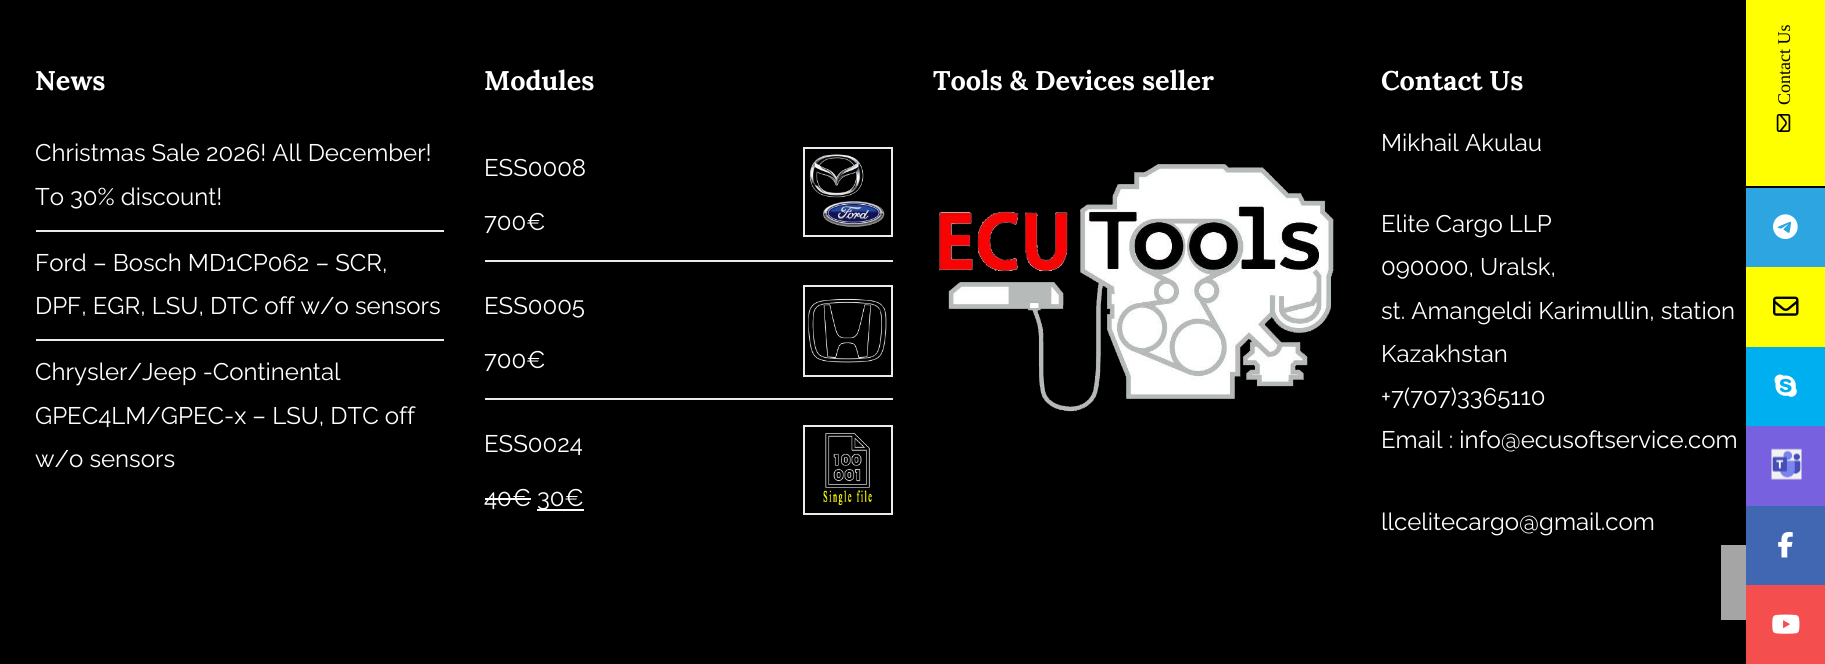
#include <cairo.h>
#include <math.h>
#include <stddef.h>

typedef struct { double x, y; const char *s; } line_t;

static void ink(cairo_t *ctx, unsigned color) {
    cairo_set_source_rgb(ctx, (color >> 16) / 255.0, (color >> 8 & 255) / 255.0, (color & 255) / 255.0);
}

static void paste(cairo_t *ctx, const char *path, double x, double y, double w, double h) {
    cairo_surface_t *image = cairo_image_surface_create_from_png(path);
    cairo_save(ctx);
    cairo_set_source_surface(ctx, image, x, y);
    cairo_rectangle(ctx, x, y, w, h);
    cairo_fill(ctx);
    cairo_restore(ctx);
    cairo_surface_destroy(image);
}

int main(void) {
    cairo_surface_t *surface = cairo_image_surface_create(CAIRO_FORMAT_RGB24, 1825, 664);
    cairo_t *ctx = cairo_create(surface);
    cairo_font_options_t *options = cairo_font_options_create();
    cairo_font_options_set_hint_metrics(options, CAIRO_HINT_METRICS_OFF);
    cairo_font_options_set_hint_style(options, CAIRO_HINT_STYLE_NONE);
    cairo_set_font_options(ctx, options);
    cairo_set_miter_limit(ctx, 4);
    ink(ctx, 0x000000);
    cairo_paint(ctx);
    cairo_select_font_face(ctx, "Lora", CAIRO_FONT_SLANT_NORMAL, CAIRO_FONT_WEIGHT_BOLD);
    cairo_set_font_size(ctx, 27);
    ink(ctx, 0xFFFFFF);
    cairo_move_to(ctx, 35, 90);
    cairo_show_text(ctx, "News");
    ink(ctx, 0xE9ECEF);
    cairo_rectangle(ctx, 36, 230, 408, 2);
    cairo_fill(ctx);
    cairo_select_font_face(ctx, "Raleway", CAIRO_FONT_SLANT_NORMAL, CAIRO_FONT_WEIGHT_NORMAL);
    cairo_set_font_size(ctx, 24);
    ink(ctx, 0xFFFFFF);
    cairo_move_to(ctx, 35, 161);
    cairo_show_text(ctx, "Christmas Sale 2026! All December!");
    cairo_move_to(ctx, 35, 205);
    cairo_show_text(ctx, "To 30% discount!");
    ink(ctx, 0xE9ECEF);
    cairo_rectangle(ctx, 36, 339, 408, 2);
    cairo_fill(ctx);
    ink(ctx, 0xFFFFFF);
    {
        static const line_t items[] = {
            {35, 271, "Ford – Bosch MD1CP062 – SCR,"},
            {35, 314, "DPF, EGR, LSU, DTC off w/o sensors"},
            {35, 380, "Chrysler/Jeep -Continental"},
            {35, 424, "GPEC4LM/GPEC-x – LSU, DTC off"},
            {35, 467, "w/o sensors"},
        };
        for (size_t i = 0; i < sizeof items / sizeof *items; i++) {
            cairo_move_to(ctx, items[i].x, items[i].y);
            cairo_show_text(ctx, items[i].s);
        }
    }
    cairo_select_font_face(ctx, "Lora", CAIRO_FONT_SLANT_NORMAL, CAIRO_FONT_WEIGHT_BOLD);
    cairo_set_font_size(ctx, 27);
    cairo_move_to(ctx, 484, 90);
    cairo_show_text(ctx, "Modules");
    ink(ctx, 0xE9ECEF);
    cairo_rectangle(ctx, 485, 260, 408, 2);
    cairo_fill(ctx);
    cairo_select_font_face(ctx, "Raleway", CAIRO_FONT_SLANT_NORMAL, CAIRO_FONT_WEIGHT_NORMAL);
    cairo_set_font_size(ctx, 24);
    ink(ctx, 0xFFFFFF);
    cairo_move_to(ctx, 484, 176);
    cairo_show_text(ctx, "ESS0008");
    cairo_rectangle(ctx, 804, 148, 88, 88);
    ink(ctx, 0xE9ECEF);
    cairo_stroke(ctx);
    paste(ctx, "media/1.png", 809, 154, 76, 73);
    ink(ctx, 0xFFFFFF);
    cairo_move_to(ctx, 484, 230);
    cairo_show_text(ctx, "700€");
    ink(ctx, 0xE9ECEF);
    cairo_rectangle(ctx, 485, 398, 408, 2);
    cairo_fill(ctx);
    ink(ctx, 0xFFFFFF);
    cairo_move_to(ctx, 484, 314);
    cairo_show_text(ctx, "ESS0005");
    cairo_rectangle(ctx, 804, 286, 88, 90);
    ink(ctx, 0xE9ECEF);
    cairo_stroke(ctx);
    paste(ctx, "media/2.png", 808, 298, 79, 65);
    ink(ctx, 0xFFFFFF);
    cairo_move_to(ctx, 484, 368);
    cairo_show_text(ctx, "700€");
    cairo_move_to(ctx, 484, 452);
    cairo_show_text(ctx, "ESS0024");
    cairo_rectangle(ctx, 804, 426, 88, 88);
    ink(ctx, 0xE9ECEF);
    cairo_stroke(ctx);
    paste(ctx, "media/3.png", 823, 433, 49, 72);
    ink(ctx, 0xFFFFFF);
    cairo_move_to(ctx, 484, 506);
    cairo_show_text(ctx, "40€");
    cairo_rectangle(ctx, 485, 498, 46, 2);
    cairo_fill(ctx);
    cairo_rectangle(ctx, 537, 509, 47, 2);
    cairo_fill(ctx);
    cairo_move_to(ctx, 537, 506);
    cairo_show_text(ctx, "30€");
    cairo_select_font_face(ctx, "Lora", CAIRO_FONT_SLANT_NORMAL, CAIRO_FONT_WEIGHT_BOLD);
    cairo_set_font_size(ctx, 27);
    cairo_move_to(ctx, 933, 90);
    cairo_show_text(ctx, "Tools & Devices seller");
    paste(ctx, "media/4.png", 939, 164, 395, 248);
    cairo_move_to(ctx, 1381, 90);
    cairo_show_text(ctx, "Contact Us");
    cairo_select_font_face(ctx, "Raleway", CAIRO_FONT_SLANT_NORMAL, CAIRO_FONT_WEIGHT_NORMAL);
    cairo_set_font_size(ctx, 24);
    {
        static const line_t items[] = {
            {1381, 151, "Mikhail Akulau"},
            {1381, 232, "Elite Cargo LLP"},
            {1381, 275, "090000, Uralsk,"},
            {1381, 319, "st. Amangeldi Karimullin, station"},
            {1381, 362, "Kazakhstan"},
            {1381, 405, "+7(707)3365110"},
            {1381, 448, "Email : info@ecusoftservice.com"},
            {1381, 530, "llcelitecargo@gmail.com"},
        };
        for (size_t i = 0; i < sizeof items / sizeof *items; i++) {
            cairo_move_to(ctx, items[i].x, items[i].y);
            cairo_show_text(ctx, items[i].s);
        }
    }
    ink(ctx, 0xFFFF00);
    cairo_rectangle(ctx, 1746, 0, 79, 186);
    cairo_fill(ctx);
    cairo_select_font_face(ctx, "Liberation Serif", CAIRO_FONT_SLANT_NORMAL, CAIRO_FONT_WEIGHT_NORMAL);
    cairo_set_font_size(ctx, 18);
    ink(ctx, 0x000000);
    cairo_save(ctx);
    cairo_translate(ctx, 1790, 105);
    cairo_rotate(ctx, -90 * M_PI / 180);
    cairo_move_to(ctx, 0, 0);
    cairo_show_text(ctx, "Contact Us");
    cairo_restore(ctx);
    paste(ctx, "media/5.png", 1776, 114, 15, 18);
    ink(ctx, 0x2CA5E0);
    cairo_rectangle(ctx, 1746, 188, 79, 79);
    cairo_fill(ctx);
    paste(ctx, "media/6.png", 1773, 214, 25, 25);
    ink(ctx, 0xFFFF00);
    cairo_rectangle(ctx, 1746, 267, 79, 80);
    cairo_fill(ctx);
    paste(ctx, "media/7.png", 1773, 296, 26, 20);
    ink(ctx, 0x00AFF0);
    cairo_rectangle(ctx, 1746, 347, 79, 79);
    cairo_fill(ctx);
    paste(ctx, "media/8.png", 1774, 374, 23, 23);
    ink(ctx, 0x7761DF);
    cairo_rectangle(ctx, 1746, 426, 79, 80);
    cairo_fill(ctx);
    paste(ctx, "media/9.png", 1771, 448, 31, 32);
    ink(ctx, 0x4267B2);
    cairo_rectangle(ctx, 1746, 506, 79, 79);
    cairo_fill(ctx);
    paste(ctx, "media/10.png", 1778, 531, 15, 27);
    ink(ctx, 0xF54E4E);
    cairo_rectangle(ctx, 1746, 585, 79, 79);
    cairo_fill(ctx);
    paste(ctx, "media/11.png", 1772, 614, 28, 20);
    ink(ctx, 0xA5A5A5);
    cairo_rectangle(ctx, 1721, 545, 25, 75);
    cairo_fill(ctx);
    cairo_surface_write_to_png(surface, "image.png");
    cairo_font_options_destroy(options);
    cairo_destroy(ctx);
    cairo_surface_destroy(surface);
    return 0;
}
